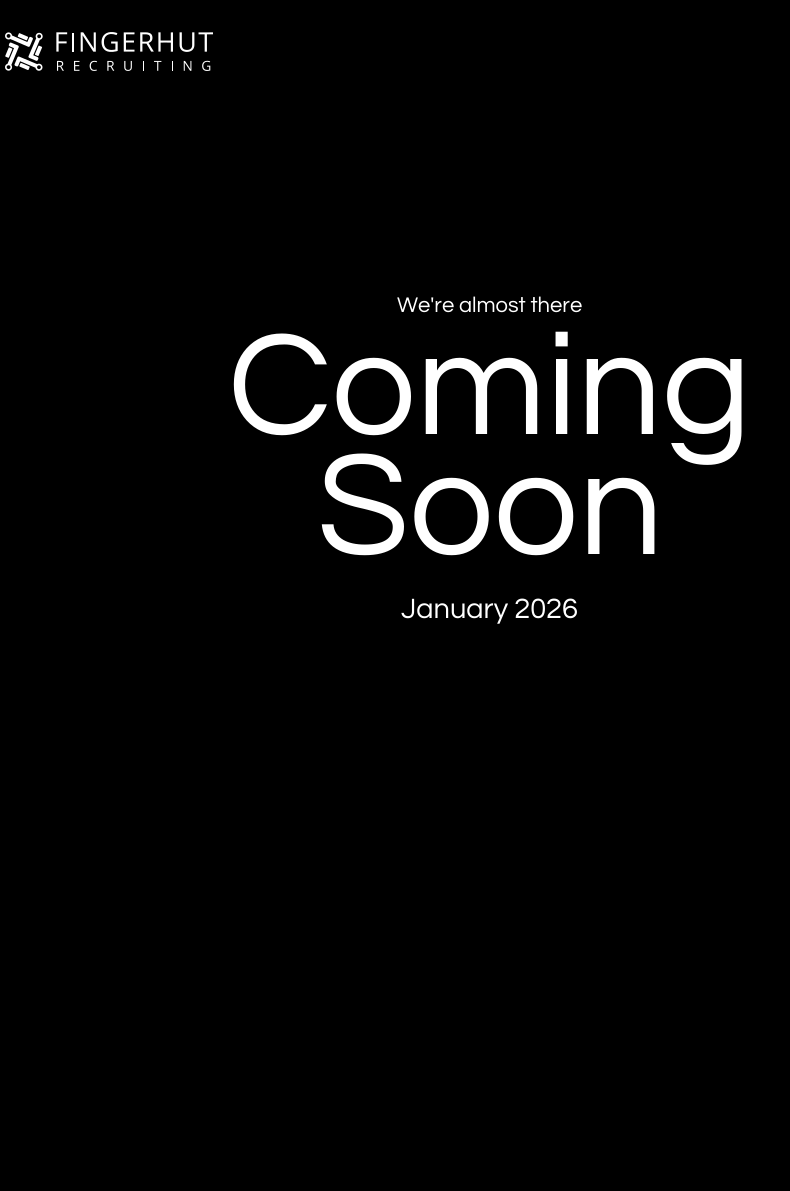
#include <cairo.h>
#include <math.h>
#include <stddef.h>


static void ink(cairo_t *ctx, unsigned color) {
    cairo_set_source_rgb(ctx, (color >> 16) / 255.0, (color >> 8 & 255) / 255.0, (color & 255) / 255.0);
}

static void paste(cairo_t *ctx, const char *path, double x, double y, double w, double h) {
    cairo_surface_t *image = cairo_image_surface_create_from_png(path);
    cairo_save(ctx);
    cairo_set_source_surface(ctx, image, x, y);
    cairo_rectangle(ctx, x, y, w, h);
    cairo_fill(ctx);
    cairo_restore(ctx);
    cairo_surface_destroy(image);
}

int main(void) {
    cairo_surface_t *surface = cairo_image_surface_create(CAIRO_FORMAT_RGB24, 790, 1191);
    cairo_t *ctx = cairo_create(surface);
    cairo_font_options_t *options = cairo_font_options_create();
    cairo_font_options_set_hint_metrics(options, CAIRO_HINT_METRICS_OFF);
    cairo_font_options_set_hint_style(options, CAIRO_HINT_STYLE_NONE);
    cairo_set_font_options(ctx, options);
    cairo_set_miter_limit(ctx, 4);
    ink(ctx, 0x000000);
    cairo_paint(ctx);
    paste(ctx, "media/1.png", 5, 32, 208, 39);
    cairo_select_font_face(ctx, "Questrial", CAIRO_FONT_SLANT_NORMAL, CAIRO_FONT_WEIGHT_NORMAL);
    cairo_set_font_size(ctx, 22);
    ink(ctx, 0xFFFFFF);
    cairo_move_to(ctx, 397, 312);
    cairo_show_text(ctx, "We're almost there");
    cairo_set_font_size(ctx, 150);
    cairo_move_to(ctx, 228, 434);
    cairo_show_text(ctx, "Coming");
    cairo_move_to(ctx, 317, 554);
    cairo_show_text(ctx, "Soon");
    cairo_set_font_size(ctx, 29);
    cairo_move_to(ctx, 401, 618);
    cairo_show_text(ctx, "January 2026");
    cairo_surface_write_to_png(surface, "image.png");
    cairo_font_options_destroy(options);
    cairo_destroy(ctx);
    cairo_surface_destroy(surface);
    return 0;
}
